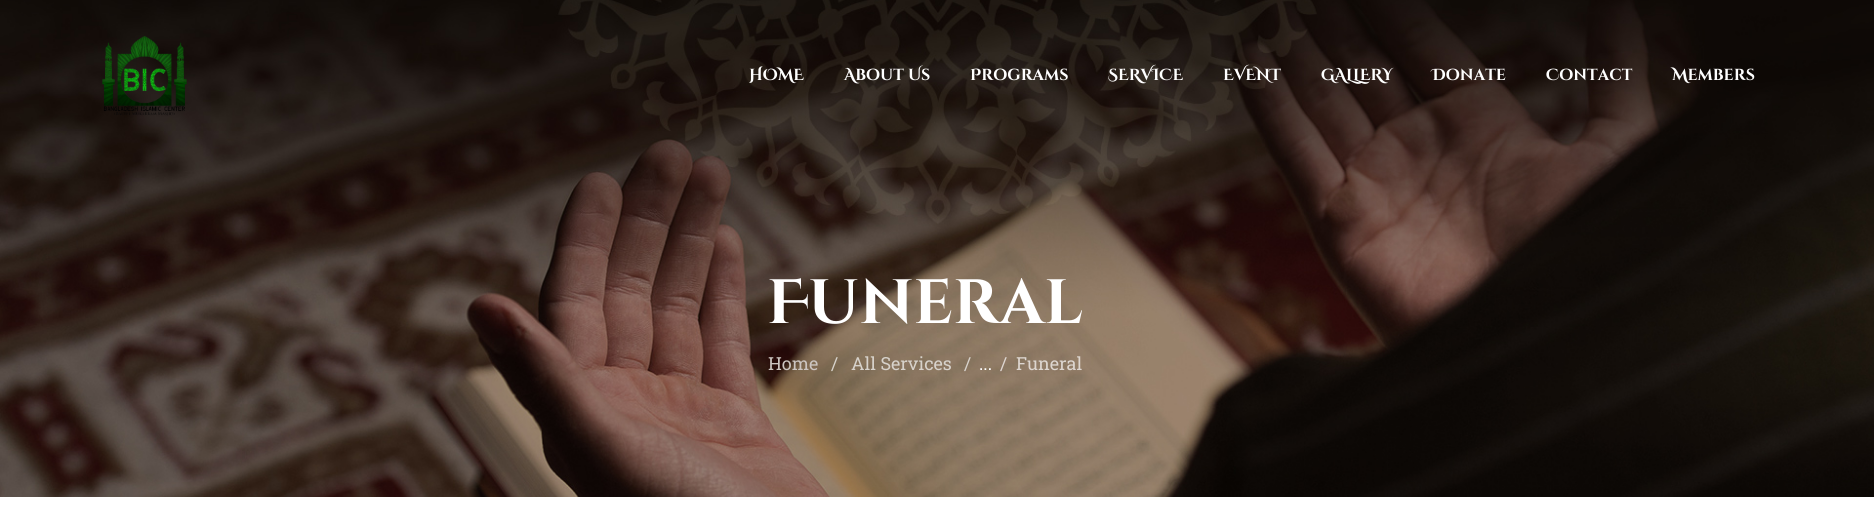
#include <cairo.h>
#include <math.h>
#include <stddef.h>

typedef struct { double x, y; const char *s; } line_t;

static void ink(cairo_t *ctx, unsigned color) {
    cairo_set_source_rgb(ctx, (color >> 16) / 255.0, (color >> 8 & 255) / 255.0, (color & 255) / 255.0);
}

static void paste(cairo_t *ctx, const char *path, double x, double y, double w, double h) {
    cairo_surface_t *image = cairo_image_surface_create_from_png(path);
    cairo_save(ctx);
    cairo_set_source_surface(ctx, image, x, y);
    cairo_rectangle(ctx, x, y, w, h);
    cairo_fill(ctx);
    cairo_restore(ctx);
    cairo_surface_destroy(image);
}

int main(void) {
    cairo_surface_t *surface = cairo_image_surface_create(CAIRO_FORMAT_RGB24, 1874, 522);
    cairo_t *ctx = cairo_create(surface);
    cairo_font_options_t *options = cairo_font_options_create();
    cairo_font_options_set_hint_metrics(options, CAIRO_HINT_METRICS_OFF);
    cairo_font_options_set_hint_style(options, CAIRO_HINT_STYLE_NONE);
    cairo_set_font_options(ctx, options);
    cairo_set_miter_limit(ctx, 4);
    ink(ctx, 0xFFFFFF);
    cairo_paint(ctx);
    paste(ctx, "media/1.png", 0, 0, 1874, 497);
    paste(ctx, "media/2.png", 102, 36, 85, 80);
    cairo_select_font_face(ctx, "Cinzel Decorative", CAIRO_FONT_SLANT_NORMAL, CAIRO_FONT_WEIGHT_BOLD);
    cairo_set_font_size(ctx, 16);
    ink(ctx, 0xFFFFFF);
    {
        static const line_t items[] = {
            {749, 80, "HOME"},
            {844, 80, "About Us"},
            {970, 80, "Programs"},
            {1108, 80, "SERVICE"},
            {1223, 80, "EVENT"},
            {1321, 80, "GALLERY"},
            {1432, 80, "Donate"},
            {1546, 80, "Contact"},
            {1672, 80, "Members"},
        };
        for (size_t i = 0; i < sizeof items / sizeof *items; i++) {
            cairo_move_to(ctx, items[i].x, items[i].y);
            cairo_show_text(ctx, items[i].s);
        }
    }
    cairo_set_font_size(ctx, 62.5);
    cairo_move_to(ctx, 767, 323);
    cairo_show_text(ctx, "Funeral");
    cairo_select_font_face(ctx, "Roboto Slab", CAIRO_FONT_SLANT_NORMAL, CAIRO_FONT_WEIGHT_NORMAL);
    cairo_set_font_size(ctx, 18);
    ink(ctx, 0xCCC5C1);
    cairo_move_to(ctx, 768, 370);
    cairo_show_text(ctx, "Home");
    ink(ctx, 0xD7D2CB);
    {
        static const line_t items[] = {
            {831, 370, "/"},
            {851, 370, "All Services"},
            {964, 370, "/"},
        };
        for (size_t i = 0; i < sizeof items / sizeof *items; i++) {
            cairo_move_to(ctx, items[i].x, items[i].y);
            cairo_show_text(ctx, items[i].s);
        }
    }
    ink(ctx, 0xFFFFFF);
    cairo_move_to(ctx, 979, 370);
    cairo_show_text(ctx, "...");
    ink(ctx, 0xDDD6D0);
    cairo_move_to(ctx, 1000, 370);
    cairo_show_text(ctx, "/");
    cairo_move_to(ctx, 1016, 370);
    cairo_show_text(ctx, "Funeral");
    cairo_surface_write_to_png(surface, "image.png");
    cairo_font_options_destroy(options);
    cairo_destroy(ctx);
    cairo_surface_destroy(surface);
    return 0;
}
